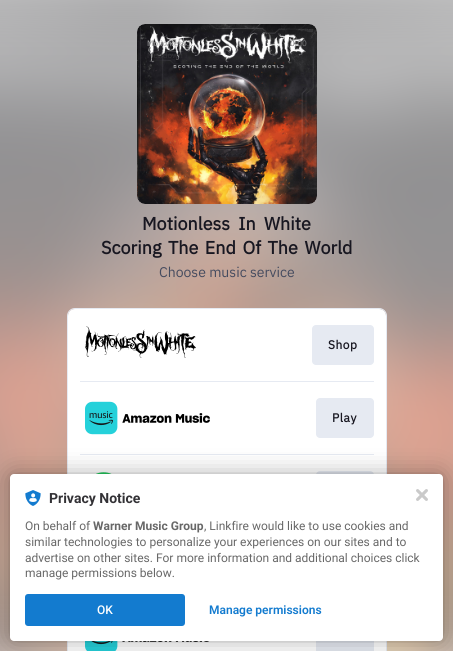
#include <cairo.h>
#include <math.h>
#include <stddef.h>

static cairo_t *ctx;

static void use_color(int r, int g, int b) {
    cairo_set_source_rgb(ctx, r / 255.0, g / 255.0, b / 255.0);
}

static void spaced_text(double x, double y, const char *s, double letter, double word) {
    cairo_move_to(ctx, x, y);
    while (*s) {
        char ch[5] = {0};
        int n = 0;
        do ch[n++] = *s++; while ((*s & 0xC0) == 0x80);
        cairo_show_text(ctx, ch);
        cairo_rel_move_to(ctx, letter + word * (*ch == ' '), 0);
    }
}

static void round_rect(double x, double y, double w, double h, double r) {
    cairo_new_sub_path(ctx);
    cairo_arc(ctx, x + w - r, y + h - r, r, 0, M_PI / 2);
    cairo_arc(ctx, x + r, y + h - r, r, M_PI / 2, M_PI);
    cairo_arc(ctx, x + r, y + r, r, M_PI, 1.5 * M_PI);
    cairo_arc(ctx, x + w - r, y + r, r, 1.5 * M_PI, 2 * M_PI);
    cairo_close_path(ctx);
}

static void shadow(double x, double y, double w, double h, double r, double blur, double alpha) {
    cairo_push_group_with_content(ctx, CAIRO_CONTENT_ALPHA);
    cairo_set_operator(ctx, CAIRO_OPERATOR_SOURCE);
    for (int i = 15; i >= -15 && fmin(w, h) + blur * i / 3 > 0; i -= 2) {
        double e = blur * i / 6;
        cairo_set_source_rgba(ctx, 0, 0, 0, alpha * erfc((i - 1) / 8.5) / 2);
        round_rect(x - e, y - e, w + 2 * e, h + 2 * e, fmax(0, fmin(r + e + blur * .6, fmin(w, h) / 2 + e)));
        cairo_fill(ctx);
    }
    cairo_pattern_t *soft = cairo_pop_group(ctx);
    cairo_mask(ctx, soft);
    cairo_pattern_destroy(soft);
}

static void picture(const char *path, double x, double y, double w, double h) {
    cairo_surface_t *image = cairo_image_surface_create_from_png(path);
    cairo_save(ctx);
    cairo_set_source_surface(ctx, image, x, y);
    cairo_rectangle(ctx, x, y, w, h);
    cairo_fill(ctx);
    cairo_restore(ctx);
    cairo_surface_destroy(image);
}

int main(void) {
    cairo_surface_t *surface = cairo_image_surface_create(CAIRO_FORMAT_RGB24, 453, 651);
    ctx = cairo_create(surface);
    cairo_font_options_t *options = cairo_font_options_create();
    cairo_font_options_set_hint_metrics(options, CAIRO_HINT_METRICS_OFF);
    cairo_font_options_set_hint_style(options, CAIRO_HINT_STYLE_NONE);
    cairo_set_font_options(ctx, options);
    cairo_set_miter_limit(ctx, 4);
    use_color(255, 255, 255);
    cairo_paint(ctx);
    picture("img1.png", 0, 0, 453, 651);
    picture("img2.png", 137, 24, 180, 180);
    cairo_select_font_face(ctx, "IBM Plex Sans", CAIRO_FONT_SLANT_NORMAL, CAIRO_FONT_WEIGHT_NORMAL);
    cairo_set_font_size(ctx, 8);
    use_color(168, 168, 169);
    cairo_move_to(ctx, 147, 46);
    cairo_show_text(ctx, "Motionless I…");
    use_color(51, 50, 54);
    cairo_move_to(ctx, 147, 58);
    cairo_show_text(ctx, "Meltdown");
    use_color(121, 121, 122);
    cairo_move_to(ctx, 290, 46);
    cairo_show_text(ctx, "0:00");
    cairo_select_font_face(ctx, "IBM Plex Sans", CAIRO_FONT_SLANT_NORMAL, CAIRO_FONT_WEIGHT_BOLD);
    cairo_set_font_size(ctx, 18);
    use_color(24, 23, 33);
    spaced_text(142, 230, "Motionless In White", 0, 4);
    spaced_text(101, 254, "Scoring The End Of The World", 0, 2.25);
    cairo_select_font_face(ctx, "IBM Plex Sans", CAIRO_FONT_SLANT_NORMAL, CAIRO_FONT_WEIGHT_NORMAL);
    cairo_set_font_size(ctx, 14);
    use_color(69, 75, 95);
    cairo_move_to(ctx, 159, 277);
    cairo_show_text(ctx, "Choose music service");
    round_rect(67.5, 308.5, 319, 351, 7.5);
    use_color(230, 234, 242);
    cairo_set_line_width(ctx, 1);
    cairo_stroke(ctx);
    use_color(255, 255, 255);
    round_rect(68, 309, 318, 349, 7);
    cairo_fill(ctx);
    picture("img3.png", 85, 326, 111, 32);
    use_color(230, 234, 242);
    round_rect(312, 325, 62, 40, 4);
    cairo_fill(ctx);
    cairo_select_font_face(ctx, "IBM Plex Sans", CAIRO_FONT_SLANT_NORMAL, CAIRO_FONT_WEIGHT_BOLD);
    cairo_set_font_size(ctx, 12);
    use_color(24, 23, 33);
    spaced_text(328, 349, "Shop", 0.5, 0);
    use_color(230, 234, 242);
    cairo_rectangle(ctx, 80, 381, 294, 1);
    cairo_fill(ctx);
    picture("img4.png", 85, 401, 125, 34);
    round_rect(316, 398, 58, 40, 4);
    cairo_fill(ctx);
    use_color(24, 23, 33);
    spaced_text(332, 422, "Play", 0.5, 0);
    use_color(230, 234, 242);
    cairo_rectangle(ctx, 80, 454, 294, 1);
    cairo_fill(ctx);
    picture("img5.png", 96, 472, 16, 2);
    round_rect(316, 471, 58, 40, 4);
    cairo_fill(ctx);
    picture("img6.png", 85, 641, 124, 10);
    cairo_rectangle(ctx, 316, 641, 58, 10);
    cairo_fill(ctx);
    use_color(0, 0, 0);
    shadow(10, 474, 433, 167, 4, 2, 0.12);
    shadow(10, 474, 433, 167, 4, 12, 0.3);
    use_color(255, 255, 255);
    round_rect(10, 474, 433, 167, 4);
    cairo_fill(ctx);
    picture("img7.png", 25, 490, 16, 16);
    cairo_select_font_face(ctx, "Roboto", CAIRO_FONT_SLANT_NORMAL, CAIRO_FONT_WEIGHT_BOLD);
    cairo_set_font_size(ctx, 14);
    use_color(51, 50, 54);
    cairo_move_to(ctx, 49, 503);
    cairo_show_text(ctx, "Privacy Notice");
    cairo_select_font_face(ctx, "Roboto", CAIRO_FONT_SLANT_NORMAL, CAIRO_FONT_WEIGHT_NORMAL);
    cairo_set_font_size(ctx, 12);
    use_color(104, 104, 104);
    cairo_move_to(ctx, 25, 530);
    cairo_show_text(ctx, "On behalf of");
    cairo_select_font_face(ctx, "Roboto", CAIRO_FONT_SLANT_NORMAL, CAIRO_FONT_WEIGHT_BOLD);
    cairo_move_to(ctx, 93, 530);
    cairo_show_text(ctx, "Warner Music Group");
    cairo_select_font_face(ctx, "Roboto", CAIRO_FONT_SLANT_NORMAL, CAIRO_FONT_WEIGHT_NORMAL);
    cairo_move_to(ctx, 204, 530);
    cairo_show_text(ctx, ", Linkfire would like to use cookies and");
    cairo_move_to(ctx, 25, 546);
    cairo_show_text(ctx, "similar technologies to personalize your experiences on our sites and to");
    cairo_move_to(ctx, 25, 562);
    cairo_show_text(ctx, "advertise on other sites. For more information and additional choices click");
    cairo_move_to(ctx, 25, 577);
    cairo_show_text(ctx, "manage permissions below.");
    use_color(19, 123, 207);
    round_rect(25, 594, 160, 32, 3);
    cairo_fill(ctx);
    cairo_select_font_face(ctx, "Roboto Medium", CAIRO_FONT_SLANT_NORMAL, CAIRO_FONT_WEIGHT_NORMAL);
    use_color(255, 255, 255);
    cairo_move_to(ctx, 97, 614);
    cairo_show_text(ctx, "OK");
    cairo_select_font_face(ctx, "Roboto SemiBold", CAIRO_FONT_SLANT_NORMAL, CAIRO_FONT_WEIGHT_NORMAL);
    use_color(19, 123, 207);
    cairo_move_to(ctx, 209, 614);
    cairo_show_text(ctx, "Manage permissions");
    picture("img8.png", 416, 489, 12, 12);
    cairo_surface_write_to_png(surface, "result.png");
    cairo_font_options_destroy(options);
    cairo_destroy(ctx);
    cairo_surface_destroy(surface);
    return 0;
}
